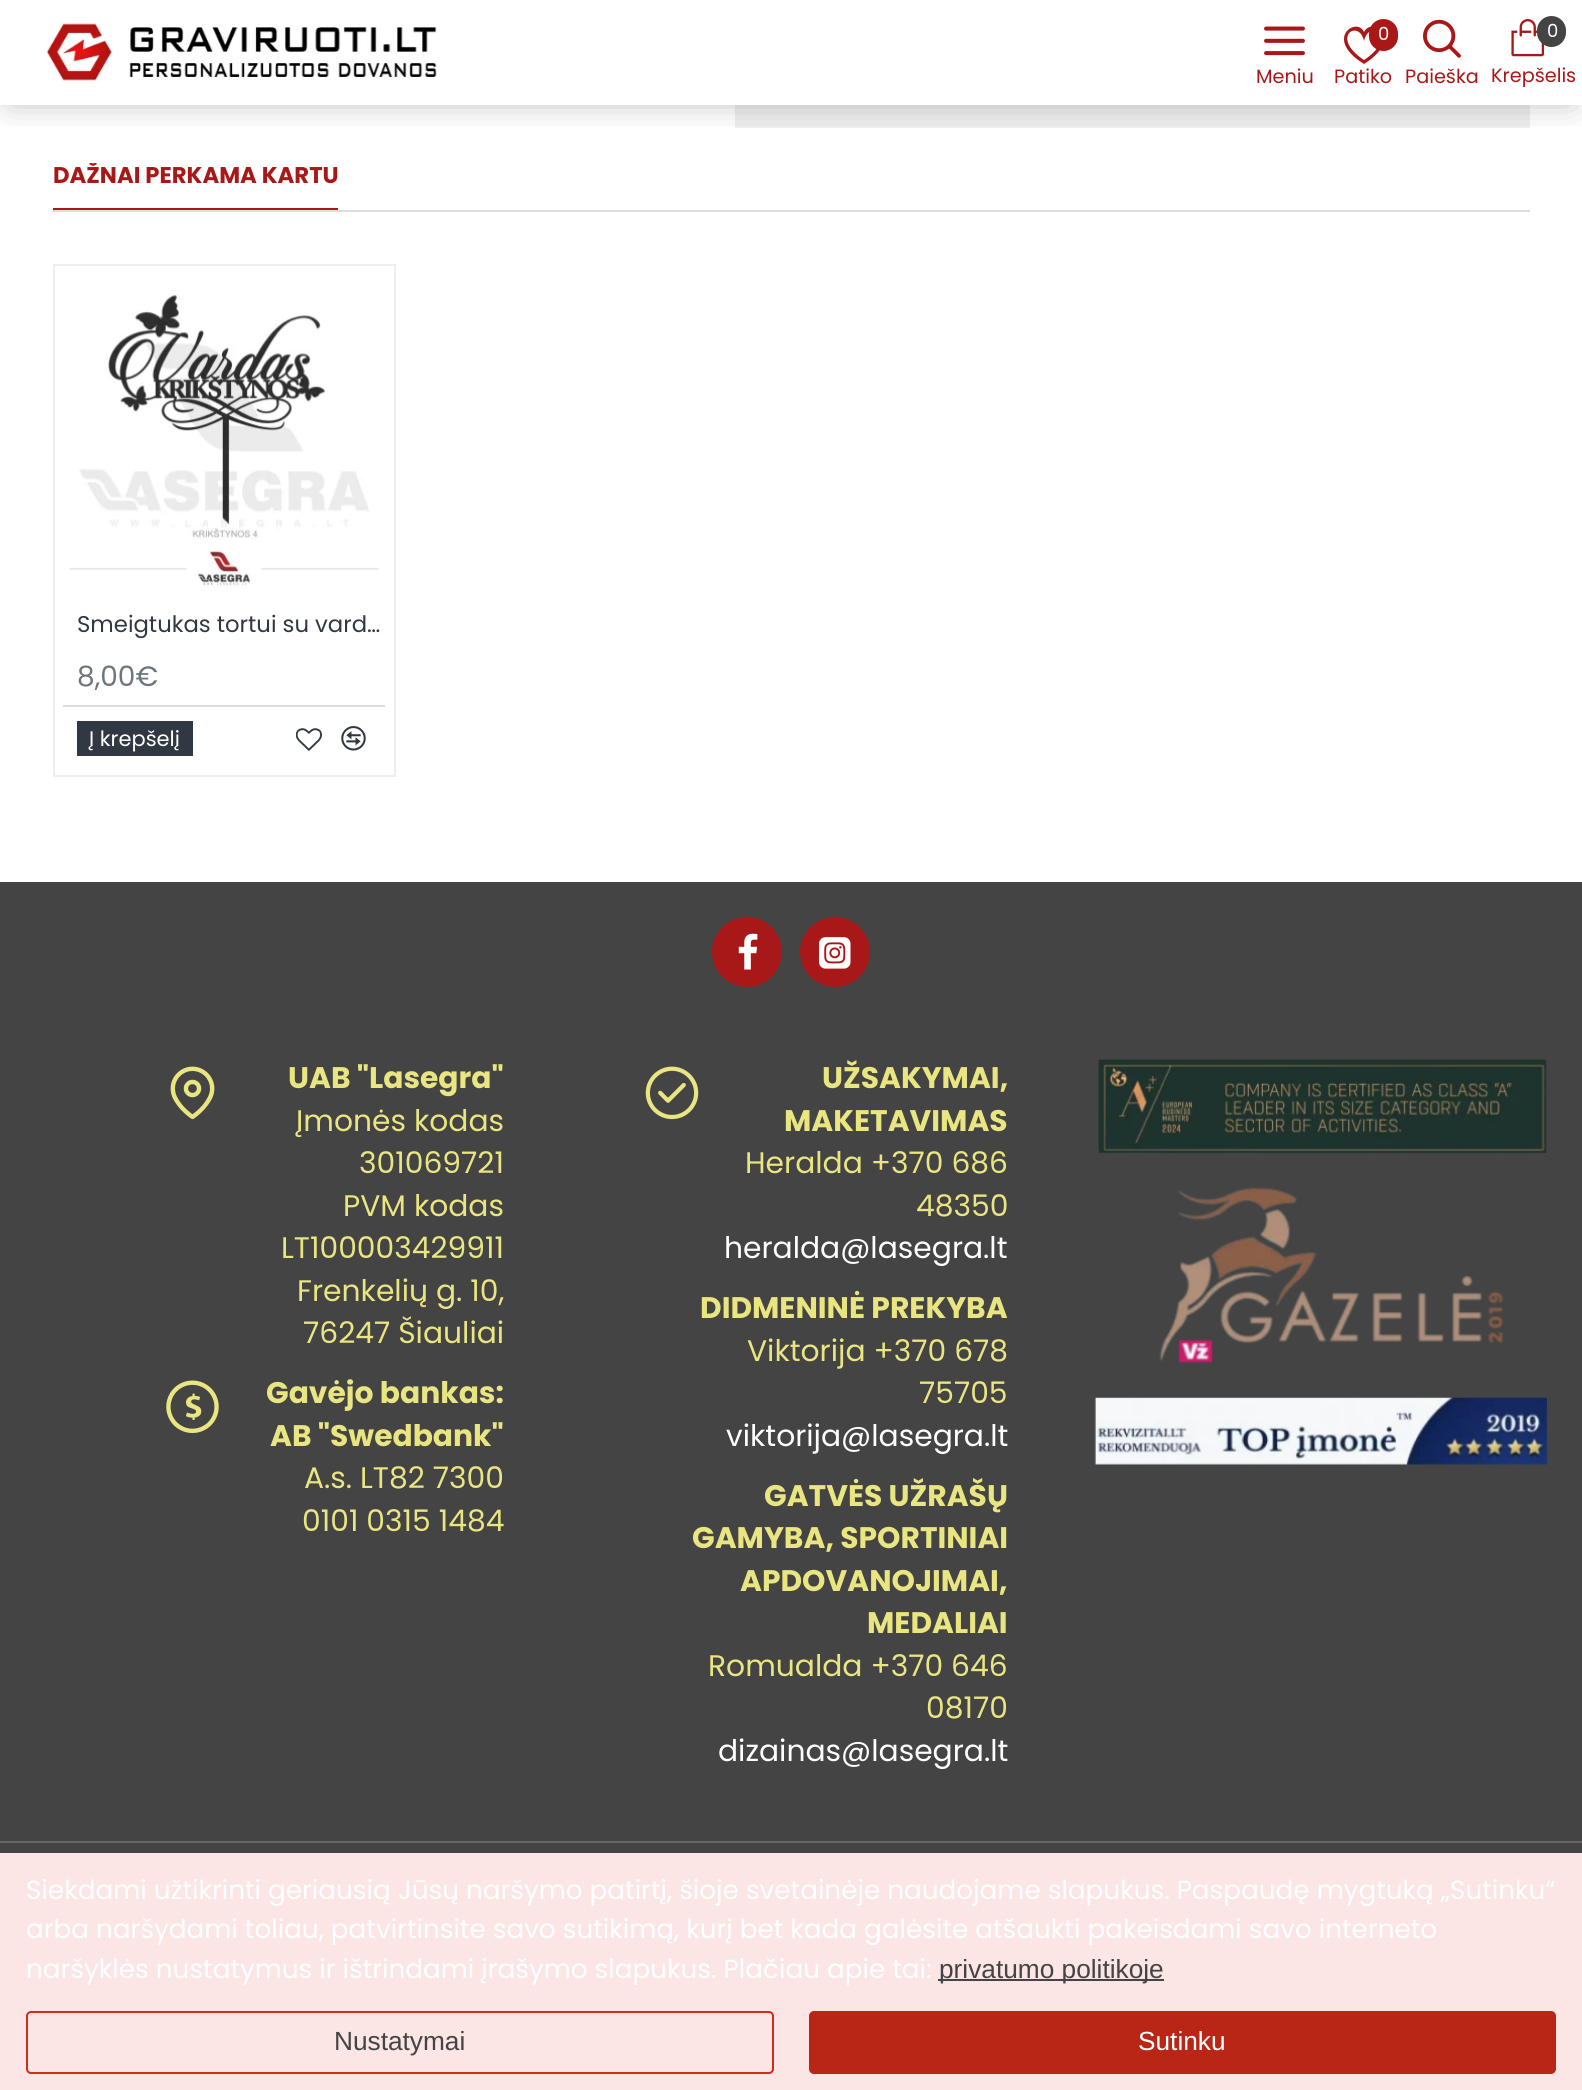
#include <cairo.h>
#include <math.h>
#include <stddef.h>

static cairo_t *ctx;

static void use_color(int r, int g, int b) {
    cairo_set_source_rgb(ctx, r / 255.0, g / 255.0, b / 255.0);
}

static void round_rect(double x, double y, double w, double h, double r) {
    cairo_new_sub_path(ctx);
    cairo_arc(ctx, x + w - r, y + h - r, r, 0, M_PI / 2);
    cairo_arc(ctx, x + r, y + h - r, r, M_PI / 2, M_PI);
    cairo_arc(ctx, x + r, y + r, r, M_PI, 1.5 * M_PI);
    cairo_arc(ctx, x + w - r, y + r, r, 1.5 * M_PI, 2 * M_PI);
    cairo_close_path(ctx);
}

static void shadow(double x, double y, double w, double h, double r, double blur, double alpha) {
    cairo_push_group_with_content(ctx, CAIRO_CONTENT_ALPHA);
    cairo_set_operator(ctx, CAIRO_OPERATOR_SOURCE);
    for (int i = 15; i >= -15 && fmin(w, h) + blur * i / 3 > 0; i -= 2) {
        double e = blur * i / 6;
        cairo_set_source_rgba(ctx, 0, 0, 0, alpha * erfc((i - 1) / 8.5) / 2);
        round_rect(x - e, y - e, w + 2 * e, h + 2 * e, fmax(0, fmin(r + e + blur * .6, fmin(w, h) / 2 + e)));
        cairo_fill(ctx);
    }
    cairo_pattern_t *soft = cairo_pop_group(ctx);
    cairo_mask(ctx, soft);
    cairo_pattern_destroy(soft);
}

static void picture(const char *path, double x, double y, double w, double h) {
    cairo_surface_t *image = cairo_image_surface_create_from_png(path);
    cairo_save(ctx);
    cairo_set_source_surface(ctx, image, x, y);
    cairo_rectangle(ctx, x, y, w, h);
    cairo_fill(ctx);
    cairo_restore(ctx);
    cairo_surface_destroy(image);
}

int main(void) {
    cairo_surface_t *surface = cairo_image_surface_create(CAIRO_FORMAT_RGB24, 1582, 2090);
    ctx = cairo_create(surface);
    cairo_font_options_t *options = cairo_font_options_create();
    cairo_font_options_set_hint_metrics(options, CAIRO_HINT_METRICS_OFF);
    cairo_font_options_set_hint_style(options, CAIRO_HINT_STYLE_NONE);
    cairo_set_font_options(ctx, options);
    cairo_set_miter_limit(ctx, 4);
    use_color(255, 255, 255);
    cairo_paint(ctx);
    use_color(238, 238, 238);
    cairo_rectangle(ctx, 735, 105, 795, 23);
    cairo_fill(ctx);
    cairo_save(ctx);
    cairo_rectangle(ctx, 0, 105, 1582, 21);
    cairo_clip(ctx);
    use_color(0, 0, 0);
    shadow(11, 16, 1561, 84, 0, 17.5, 0.3);
    cairo_restore(ctx);
    picture("img1.png", 46, 22, 391, 60);
    picture("img2.png", 1264, 26, 41, 30);
    cairo_select_font_face(ctx, "Poppins", CAIRO_FONT_SLANT_NORMAL, CAIRO_FONT_WEIGHT_NORMAL);
    cairo_set_font_size(ctx, 19.25);
    use_color(169, 24, 24);
    cairo_move_to(ctx, 1256, 83);
    cairo_show_text(ctx, "Meniu");
    cairo_new_path(ctx);
    cairo_move_to(ctx, 1364, 41);
    cairo_curve_to(ctx, 1369, 18, 1399, 37, 1364, 60);
    cairo_curve_to(ctx, 1329, 37, 1359, 18, 1364, 41);
    cairo_close_path(ctx);
    cairo_move_to(ctx, 1344, 39);
    cairo_curve_to(ctx, 1344, 50, 1356, 59, 1364, 64);
    cairo_curve_to(ctx, 1405, 38, 1372, 16, 1364, 32);
    cairo_curve_to(ctx, 1360, 22, 1344, 27, 1344, 39);
    cairo_close_path(ctx);
    cairo_fill(ctx);
    round_rect(1369, 19, 29, 32, 14.5);
    cairo_fill(ctx);
    cairo_set_font_size(ctx, 18);
    use_color(255, 255, 255);
    cairo_move_to(ctx, 1378, 40);
    cairo_show_text(ctx, "0");
    cairo_set_font_size(ctx, 19.25);
    use_color(169, 24, 24);
    cairo_move_to(ctx, 1334, 83);
    cairo_show_text(ctx, "Patiko");
    picture("img3.png", 1423, 19, 38, 39);
    cairo_move_to(ctx, 1405, 83);
    cairo_show_text(ctx, "Paieška");
    picture("img4.png", 1511, 19, 34, 38);
    use_color(68, 68, 68);
    round_rect(1537, 16, 29, 31, 14.5);
    cairo_fill(ctx);
    cairo_set_font_size(ctx, 18);
    use_color(255, 255, 255);
    cairo_move_to(ctx, 1547, 37);
    cairo_show_text(ctx, "0");
    cairo_set_font_size(ctx, 19.25);
    use_color(169, 24, 24);
    cairo_move_to(ctx, 1491, 82);
    cairo_show_text(ctx, "Krepšelis");
    use_color(221, 221, 221);
    cairo_rectangle(ctx, 53, 210, 1477, 2);
    cairo_fill(ctx);
    use_color(169, 24, 24);
    cairo_rectangle(ctx, 53, 208, 285, 2);
    cairo_fill(ctx);
    cairo_save(ctx);
    cairo_rectangle(ctx, 53, 163, 1477, 47);
    cairo_clip(ctx);
    cairo_select_font_face(ctx, "Poppins", CAIRO_FONT_SLANT_NORMAL, CAIRO_FONT_WEIGHT_BOLD);
    cairo_set_font_size(ctx, 22.75);
    cairo_move_to(ctx, 53, 183);
    cairo_show_text(ctx, "DAŽNAI PERKAMA KARTU");
    cairo_restore(ctx);
    cairo_rectangle(ctx, 54, 265, 341, 511);
    use_color(238, 238, 238);
    cairo_stroke(ctx);
    picture("img5.png", 69, 295, 310, 293);
    cairo_set_font_size(ctx, 22.75);
    use_color(48, 56, 65);
    cairo_move_to(ctx, 77, 632);
    cairo_show_text(ctx, "Smeigtukas tortui su vard…");
    cairo_set_font_size(ctx, 28);
    use_color(109, 118, 125);
    cairo_move_to(ctx, 77, 686);
    cairo_show_text(ctx, "8,00€");
    use_color(221, 221, 221);
    cairo_rectangle(ctx, 63, 705, 322, 2);
    cairo_fill(ctx);
    use_color(48, 56, 65);
    cairo_rectangle(ctx, 77, 721, 116, 35);
    cairo_fill(ctx);
    cairo_set_font_size(ctx, 21);
    use_color(255, 255, 255);
    cairo_move_to(ctx, 89, 746);
    cairo_show_text(ctx, "Į krepšelį");
    picture("img6.png", 296, 728, 26, 23);
    picture("img7.png", 341, 726, 25, 25);
    use_color(68, 68, 68);
    cairo_rectangle(ctx, 0, 882, 1582, 971);
    cairo_fill(ctx);
    use_color(169, 24, 24);
    cairo_arc(ctx, 747, 952, 35, 0, 2 * M_PI);
    cairo_fill(ctx);
    picture("img8.png", 738, 933, 20, 37);
    cairo_arc(ctx, 835, 952, 35, 0, 2 * M_PI);
    cairo_fill(ctx);
    picture("img9.png", 819, 937, 32, 32);
    picture("img10.png", 170, 1066, 45, 54);
    cairo_select_font_face(ctx, "Poppins", CAIRO_FONT_SLANT_NORMAL, CAIRO_FONT_WEIGHT_BOLD);
    cairo_set_font_size(ctx, 29.75);
    use_color(233, 229, 129);
    cairo_move_to(ctx, 288, 1088);
    cairo_show_text(ctx, "UAB \"Lasegra\"");
    cairo_select_font_face(ctx, "Poppins", CAIRO_FONT_SLANT_NORMAL, CAIRO_FONT_WEIGHT_NORMAL);
    cairo_move_to(ctx, 296, 1131);
    cairo_show_text(ctx, "Įmonės kodas");
    cairo_move_to(ctx, 359, 1173);
    cairo_show_text(ctx, "301069721");
    cairo_move_to(ctx, 343, 1216);
    cairo_show_text(ctx, "PVM kodas");
    cairo_move_to(ctx, 281, 1258);
    cairo_show_text(ctx, "LT100003429911");
    cairo_move_to(ctx, 297, 1301);
    cairo_show_text(ctx, "Frenkelių g. 10,");
    cairo_move_to(ctx, 303, 1343);
    cairo_show_text(ctx, "76247 Šiauliai");
    picture("img11.png", 166, 1380, 53, 53);
    cairo_select_font_face(ctx, "Poppins", CAIRO_FONT_SLANT_NORMAL, CAIRO_FONT_WEIGHT_BOLD);
    cairo_move_to(ctx, 266, 1403);
    cairo_show_text(ctx, "Gavėjo bankas:");
    cairo_move_to(ctx, 270, 1446);
    cairo_show_text(ctx, "AB \"Swedbank\"");
    cairo_select_font_face(ctx, "Poppins", CAIRO_FONT_SLANT_NORMAL, CAIRO_FONT_WEIGHT_NORMAL);
    cairo_move_to(ctx, 304, 1488);
    cairo_show_text(ctx, "A.s. LT82 7300");
    cairo_move_to(ctx, 302, 1531);
    cairo_show_text(ctx, "0101 0315 1484");
    picture("img12.png", 645, 1066, 54, 54);
    cairo_select_font_face(ctx, "Poppins", CAIRO_FONT_SLANT_NORMAL, CAIRO_FONT_WEIGHT_BOLD);
    cairo_move_to(ctx, 822, 1088);
    cairo_show_text(ctx, "UŽSAKYMAI,");
    cairo_move_to(ctx, 784, 1131);
    cairo_show_text(ctx, "MAKETAVIMAS");
    cairo_select_font_face(ctx, "Poppins", CAIRO_FONT_SLANT_NORMAL, CAIRO_FONT_WEIGHT_NORMAL);
    cairo_move_to(ctx, 745, 1173);
    cairo_show_text(ctx, "Heralda +370 686");
    cairo_move_to(ctx, 916, 1216);
    cairo_show_text(ctx, "48350");
    use_color(255, 255, 255);
    cairo_move_to(ctx, 724, 1258);
    cairo_show_text(ctx, "heralda@lasegra.lt");
    cairo_select_font_face(ctx, "Poppins", CAIRO_FONT_SLANT_NORMAL, CAIRO_FONT_WEIGHT_BOLD);
    use_color(233, 229, 129);
    cairo_move_to(ctx, 700, 1318);
    cairo_show_text(ctx, "DIDMENINĖ PREKYBA");
    cairo_select_font_face(ctx, "Poppins", CAIRO_FONT_SLANT_NORMAL, CAIRO_FONT_WEIGHT_NORMAL);
    cairo_move_to(ctx, 747, 1361);
    cairo_show_text(ctx, "Viktorija +370 678");
    cairo_move_to(ctx, 919, 1403);
    cairo_show_text(ctx, "75705");
    use_color(255, 255, 255);
    cairo_move_to(ctx, 726, 1446);
    cairo_show_text(ctx, "viktorija@lasegra.lt");
    cairo_select_font_face(ctx, "Poppins", CAIRO_FONT_SLANT_NORMAL, CAIRO_FONT_WEIGHT_BOLD);
    use_color(233, 229, 129);
    cairo_move_to(ctx, 764, 1506);
    cairo_show_text(ctx, "GATVĖS UŽRAŠŲ");
    cairo_move_to(ctx, 692, 1548);
    cairo_show_text(ctx, "GAMYBA, SPORTINIAI");
    cairo_move_to(ctx, 740, 1591);
    cairo_show_text(ctx, "APDOVANOJIMAI,");
    cairo_move_to(ctx, 867, 1633);
    cairo_show_text(ctx, "MEDALIAI");
    cairo_select_font_face(ctx, "Poppins", CAIRO_FONT_SLANT_NORMAL, CAIRO_FONT_WEIGHT_NORMAL);
    cairo_move_to(ctx, 708, 1676);
    cairo_show_text(ctx, "Romualda +370 646");
    cairo_move_to(ctx, 926, 1718);
    cairo_show_text(ctx, "08170");
    use_color(255, 255, 255);
    cairo_move_to(ctx, 718, 1761);
    cairo_show_text(ctx, "dizainas@lasegra.lt");
    picture("img13.png", 1098, 1059, 449, 94);
    picture("img14.png", 1159, 1187, 345, 177);
    picture("img15.png", 1094, 1397, 453, 68);
    use_color(102, 102, 102);
    cairo_rectangle(ctx, 0, 1841, 1582, 2);
    cairo_fill(ctx);
    use_color(251, 229, 229);
    cairo_rectangle(ctx, 0, 1853, 1582, 237);
    cairo_fill(ctx);
    cairo_set_font_size(ctx, 26.25);
    use_color(255, 255, 255);
    cairo_move_to(ctx, 26, 1899);
    cairo_show_text(ctx, "Siekdami užtikrinti geriausią Jūsų naršymo patirtį, šioje svetainėje naudojame slapukus. Paspaudę mygtuką „Sutinku“");
    cairo_move_to(ctx, 26, 1938);
    cairo_show_text(ctx, "arba naršydami toliau, patvirtinsite savo sutikimą, kurį bet kada galėsite atšaukti pakeisdami savo interneto");
    cairo_move_to(ctx, 26, 1978);
    cairo_show_text(ctx, "naršyklės nustatymus ir ištrindami įrašymo slapukus. Plačiau apie tai:");
    use_color(68, 68, 68);
    cairo_rectangle(ctx, 938, 1979, 226, 2);
    cairo_fill(ctx);
    cairo_select_font_face(ctx, "Liberation Sans", CAIRO_FONT_SLANT_NORMAL, CAIRO_FONT_WEIGHT_NORMAL);
    cairo_move_to(ctx, 939, 1978);
    cairo_show_text(ctx, "privatumo politikoje");
    round_rect(27, 2012, 746, 61, 4);
    use_color(209, 45, 28);
    cairo_stroke(ctx);
    use_color(68, 68, 68);
    cairo_move_to(ctx, 334, 2050);
    cairo_show_text(ctx, "Nustatymai");
    use_color(185, 38, 22);
    round_rect(810, 2012, 745, 61, 4);
    cairo_fill_preserve(ctx);
    cairo_stroke(ctx);
    use_color(255, 255, 255);
    cairo_move_to(ctx, 1138, 2050);
    cairo_show_text(ctx, "Sutinku");
    cairo_surface_write_to_png(surface, "result.png");
    cairo_font_options_destroy(options);
    cairo_destroy(ctx);
    cairo_surface_destroy(surface);
    return 0;
}
